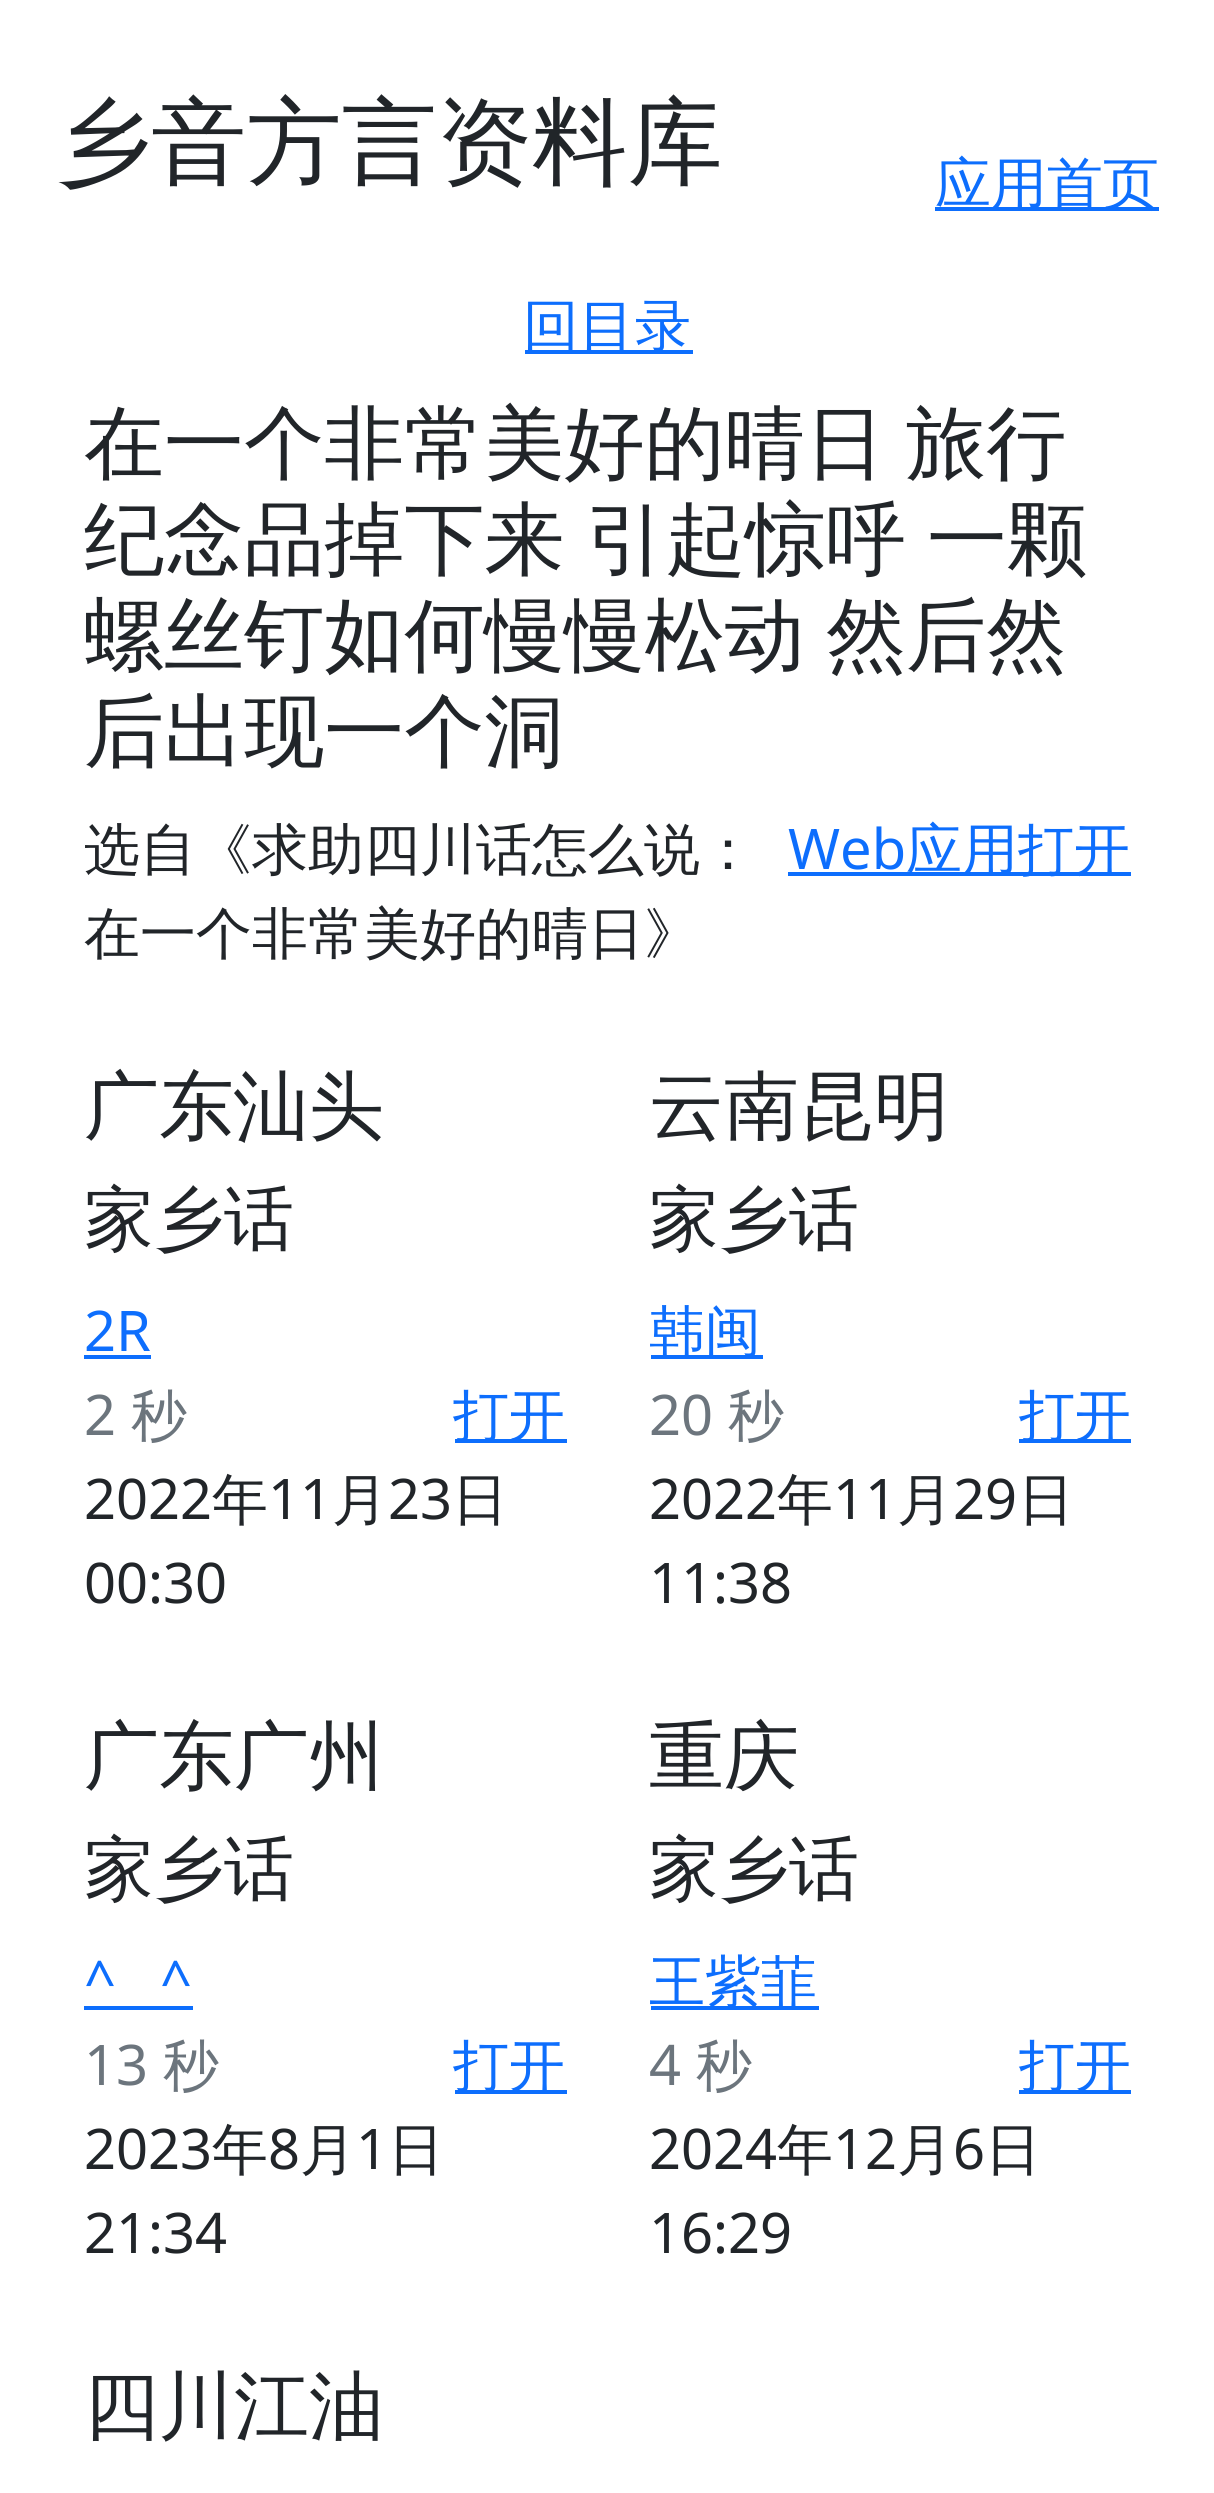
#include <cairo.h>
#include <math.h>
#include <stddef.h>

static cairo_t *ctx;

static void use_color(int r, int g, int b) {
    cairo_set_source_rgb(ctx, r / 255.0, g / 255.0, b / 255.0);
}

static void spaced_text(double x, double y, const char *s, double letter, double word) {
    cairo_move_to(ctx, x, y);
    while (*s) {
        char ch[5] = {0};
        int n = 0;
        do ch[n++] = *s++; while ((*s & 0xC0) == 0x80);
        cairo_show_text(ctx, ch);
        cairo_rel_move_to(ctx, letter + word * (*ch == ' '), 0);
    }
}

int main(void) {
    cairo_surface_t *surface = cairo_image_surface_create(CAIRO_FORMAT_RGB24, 1214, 2493);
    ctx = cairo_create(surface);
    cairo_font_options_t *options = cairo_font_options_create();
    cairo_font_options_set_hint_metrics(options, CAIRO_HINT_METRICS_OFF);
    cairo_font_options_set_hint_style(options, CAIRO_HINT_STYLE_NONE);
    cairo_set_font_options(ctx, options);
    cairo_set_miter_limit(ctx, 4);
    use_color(255, 255, 255);
    cairo_paint(ctx);
    cairo_select_font_face(ctx, "WenQuanYi Zen Hei Medium", CAIRO_FONT_SLANT_NORMAL, CAIRO_FONT_WEIGHT_NORMAL);
    cairo_set_font_size(ctx, 95.25);
    use_color(33, 37, 41);
    cairo_move_to(ctx, 56, 175);
    cairo_show_text(ctx, "乡音方言资料库");
    use_color(13, 110, 253);
    cairo_rectangle(ctx, 935, 207, 224, 4);
    cairo_fill(ctx);
    cairo_set_font_size(ctx, 56);
    cairo_move_to(ctx, 935, 203);
    cairo_show_text(ctx, "应用首页");
    cairo_rectangle(ctx, 525, 350, 168, 4);
    cairo_fill(ctx);
    cairo_move_to(ctx, 523, 345);
    cairo_show_text(ctx, "回目录");
    cairo_set_font_size(ctx, 80.1);
    use_color(33, 37, 41);
    spaced_text(84, 471, "在一个非常美好的晴日 旅行", 0, -3);
    spaced_text(84, 567, "纪念品掉下来 引起惊呼 一颗", 0, -3);
    spaced_text(84, 663, "螺丝钉如何慢慢松动 然后然", 0, -3);
    cairo_move_to(ctx, 84, 759);
    cairo_show_text(ctx, "后出现一个洞");
    cairo_set_font_size(ctx, 56);
    cairo_move_to(ctx, 84, 869);
    cairo_show_text(ctx, "选自《求助四川话怎么说：");
    cairo_move_to(ctx, 84, 953);
    cairo_show_text(ctx, "在一个非常美好的晴日》");
    cairo_select_font_face(ctx, "Noto Sans", CAIRO_FONT_SLANT_NORMAL, CAIRO_FONT_WEIGHT_NORMAL);
    use_color(13, 110, 253);
    cairo_move_to(ctx, 788, 869);
    cairo_show_text(ctx, "Web");
    cairo_rectangle(ctx, 788, 872, 343, 4);
    cairo_fill(ctx);
    cairo_select_font_face(ctx, "WenQuanYi Zen Hei Medium", CAIRO_FONT_SLANT_NORMAL, CAIRO_FONT_WEIGHT_NORMAL);
    cairo_move_to(ctx, 906, 869);
    cairo_show_text(ctx, "应用打开");
    cairo_set_font_size(ctx, 75);
    use_color(33, 37, 41);
    cairo_move_to(ctx, 84, 1132);
    cairo_show_text(ctx, "广东汕头");
    cairo_set_font_size(ctx, 70);
    cairo_move_to(ctx, 84, 1243);
    cairo_show_text(ctx, "家乡话");
    cairo_select_font_face(ctx, "Noto Sans", CAIRO_FONT_SLANT_NORMAL, CAIRO_FONT_WEIGHT_NORMAL);
    cairo_set_font_size(ctx, 56);
    use_color(13, 110, 253);
    cairo_move_to(ctx, 84, 1351);
    cairo_show_text(ctx, "2R");
    cairo_rectangle(ctx, 84, 1355, 67, 4);
    cairo_fill(ctx);
    use_color(108, 117, 125);
    cairo_move_to(ctx, 84, 1435);
    cairo_show_text(ctx, "2");
    cairo_select_font_face(ctx, "WenQuanYi Zen Hei Medium", CAIRO_FONT_SLANT_NORMAL, CAIRO_FONT_WEIGHT_NORMAL);
    cairo_move_to(ctx, 131, 1435);
    cairo_show_text(ctx, "秒");
    use_color(13, 110, 253);
    cairo_rectangle(ctx, 455, 1439, 112, 4);
    cairo_fill(ctx);
    cairo_move_to(ctx, 453, 1435);
    cairo_show_text(ctx, "打开");
    cairo_select_font_face(ctx, "Noto Sans", CAIRO_FONT_SLANT_NORMAL, CAIRO_FONT_WEIGHT_NORMAL);
    use_color(33, 37, 41);
    cairo_move_to(ctx, 84, 1519);
    cairo_show_text(ctx, "2022");
    cairo_select_font_face(ctx, "WenQuanYi Zen Hei Medium", CAIRO_FONT_SLANT_NORMAL, CAIRO_FONT_WEIGHT_NORMAL);
    cairo_move_to(ctx, 212, 1519);
    cairo_show_text(ctx, "年");
    cairo_select_font_face(ctx, "Noto Sans", CAIRO_FONT_SLANT_NORMAL, CAIRO_FONT_WEIGHT_NORMAL);
    cairo_move_to(ctx, 268, 1519);
    cairo_show_text(ctx, "11");
    cairo_select_font_face(ctx, "WenQuanYi Zen Hei Medium", CAIRO_FONT_SLANT_NORMAL, CAIRO_FONT_WEIGHT_NORMAL);
    cairo_move_to(ctx, 332, 1519);
    cairo_show_text(ctx, "月");
    cairo_select_font_face(ctx, "Noto Sans", CAIRO_FONT_SLANT_NORMAL, CAIRO_FONT_WEIGHT_NORMAL);
    cairo_move_to(ctx, 388, 1519);
    cairo_show_text(ctx, "23");
    cairo_select_font_face(ctx, "WenQuanYi Zen Hei Medium", CAIRO_FONT_SLANT_NORMAL, CAIRO_FONT_WEIGHT_NORMAL);
    cairo_move_to(ctx, 452, 1519);
    cairo_show_text(ctx, "日");
    cairo_select_font_face(ctx, "Noto Sans", CAIRO_FONT_SLANT_NORMAL, CAIRO_FONT_WEIGHT_NORMAL);
    cairo_move_to(ctx, 84, 1603);
    cairo_show_text(ctx, "00:30");
    cairo_select_font_face(ctx, "WenQuanYi Zen Hei Medium", CAIRO_FONT_SLANT_NORMAL, CAIRO_FONT_WEIGHT_NORMAL);
    cairo_set_font_size(ctx, 75);
    cairo_move_to(ctx, 649, 1132);
    cairo_show_text(ctx, "云南昆明");
    cairo_set_font_size(ctx, 70);
    cairo_move_to(ctx, 649, 1243);
    cairo_show_text(ctx, "家乡话");
    use_color(13, 110, 253);
    cairo_rectangle(ctx, 651, 1355, 112, 4);
    cairo_fill(ctx);
    cairo_set_font_size(ctx, 56);
    cairo_move_to(ctx, 649, 1351);
    cairo_show_text(ctx, "韩闽");
    cairo_select_font_face(ctx, "Noto Sans", CAIRO_FONT_SLANT_NORMAL, CAIRO_FONT_WEIGHT_NORMAL);
    use_color(108, 117, 125);
    cairo_move_to(ctx, 649, 1435);
    cairo_show_text(ctx, "20");
    cairo_select_font_face(ctx, "WenQuanYi Zen Hei Medium", CAIRO_FONT_SLANT_NORMAL, CAIRO_FONT_WEIGHT_NORMAL);
    cairo_move_to(ctx, 728, 1435);
    cairo_show_text(ctx, "秒");
    use_color(13, 110, 253);
    cairo_rectangle(ctx, 1019, 1439, 112, 4);
    cairo_fill(ctx);
    cairo_move_to(ctx, 1019, 1435);
    cairo_show_text(ctx, "打开");
    cairo_select_font_face(ctx, "Noto Sans", CAIRO_FONT_SLANT_NORMAL, CAIRO_FONT_WEIGHT_NORMAL);
    use_color(33, 37, 41);
    cairo_move_to(ctx, 649, 1519);
    cairo_show_text(ctx, "2022");
    cairo_select_font_face(ctx, "WenQuanYi Zen Hei Medium", CAIRO_FONT_SLANT_NORMAL, CAIRO_FONT_WEIGHT_NORMAL);
    cairo_move_to(ctx, 777, 1519);
    cairo_show_text(ctx, "年");
    cairo_select_font_face(ctx, "Noto Sans", CAIRO_FONT_SLANT_NORMAL, CAIRO_FONT_WEIGHT_NORMAL);
    cairo_move_to(ctx, 833, 1519);
    cairo_show_text(ctx, "11");
    cairo_select_font_face(ctx, "WenQuanYi Zen Hei Medium", CAIRO_FONT_SLANT_NORMAL, CAIRO_FONT_WEIGHT_NORMAL);
    cairo_move_to(ctx, 897, 1519);
    cairo_show_text(ctx, "月");
    cairo_select_font_face(ctx, "Noto Sans", CAIRO_FONT_SLANT_NORMAL, CAIRO_FONT_WEIGHT_NORMAL);
    cairo_move_to(ctx, 953, 1519);
    cairo_show_text(ctx, "29");
    cairo_select_font_face(ctx, "WenQuanYi Zen Hei Medium", CAIRO_FONT_SLANT_NORMAL, CAIRO_FONT_WEIGHT_NORMAL);
    cairo_move_to(ctx, 1018, 1519);
    cairo_show_text(ctx, "日");
    cairo_select_font_face(ctx, "Noto Sans", CAIRO_FONT_SLANT_NORMAL, CAIRO_FONT_WEIGHT_NORMAL);
    cairo_move_to(ctx, 649, 1603);
    cairo_show_text(ctx, "11:38");
    cairo_select_font_face(ctx, "WenQuanYi Zen Hei Medium", CAIRO_FONT_SLANT_NORMAL, CAIRO_FONT_WEIGHT_NORMAL);
    cairo_set_font_size(ctx, 75);
    cairo_move_to(ctx, 84, 1782);
    cairo_show_text(ctx, "广东广州");
    cairo_set_font_size(ctx, 70);
    cairo_move_to(ctx, 84, 1893);
    cairo_show_text(ctx, "家乡话");
    cairo_select_font_face(ctx, "Noto Sans", CAIRO_FONT_SLANT_NORMAL, CAIRO_FONT_WEIGHT_NORMAL);
    cairo_set_font_size(ctx, 56);
    use_color(13, 110, 253);
    cairo_move_to(ctx, 84, 2001);
    cairo_show_text(ctx, "^");
    cairo_rectangle(ctx, 84, 2006, 109, 4);
    cairo_fill(ctx);
    cairo_move_to(ctx, 160, 2001);
    cairo_show_text(ctx, "^");
    use_color(108, 117, 125);
    cairo_move_to(ctx, 84, 2085);
    cairo_show_text(ctx, "13");
    cairo_select_font_face(ctx, "WenQuanYi Zen Hei Medium", CAIRO_FONT_SLANT_NORMAL, CAIRO_FONT_WEIGHT_NORMAL);
    cairo_move_to(ctx, 163, 2085);
    cairo_show_text(ctx, "秒");
    use_color(13, 110, 253);
    cairo_rectangle(ctx, 455, 2090, 112, 4);
    cairo_fill(ctx);
    cairo_move_to(ctx, 453, 2085);
    cairo_show_text(ctx, "打开");
    cairo_select_font_face(ctx, "Noto Sans", CAIRO_FONT_SLANT_NORMAL, CAIRO_FONT_WEIGHT_NORMAL);
    use_color(33, 37, 41);
    cairo_move_to(ctx, 84, 2169);
    cairo_show_text(ctx, "2023");
    cairo_select_font_face(ctx, "WenQuanYi Zen Hei Medium", CAIRO_FONT_SLANT_NORMAL, CAIRO_FONT_WEIGHT_NORMAL);
    cairo_move_to(ctx, 212, 2169);
    cairo_show_text(ctx, "年");
    cairo_select_font_face(ctx, "Noto Sans", CAIRO_FONT_SLANT_NORMAL, CAIRO_FONT_WEIGHT_NORMAL);
    cairo_move_to(ctx, 268, 2169);
    cairo_show_text(ctx, "8");
    cairo_select_font_face(ctx, "WenQuanYi Zen Hei Medium", CAIRO_FONT_SLANT_NORMAL, CAIRO_FONT_WEIGHT_NORMAL);
    cairo_move_to(ctx, 300, 2169);
    cairo_show_text(ctx, "月");
    cairo_select_font_face(ctx, "Noto Sans", CAIRO_FONT_SLANT_NORMAL, CAIRO_FONT_WEIGHT_NORMAL);
    cairo_move_to(ctx, 356, 2169);
    cairo_show_text(ctx, "1");
    cairo_select_font_face(ctx, "WenQuanYi Zen Hei Medium", CAIRO_FONT_SLANT_NORMAL, CAIRO_FONT_WEIGHT_NORMAL);
    cairo_move_to(ctx, 388, 2169);
    cairo_show_text(ctx, "日");
    cairo_select_font_face(ctx, "Noto Sans", CAIRO_FONT_SLANT_NORMAL, CAIRO_FONT_WEIGHT_NORMAL);
    cairo_move_to(ctx, 84, 2253);
    cairo_show_text(ctx, "21:34");
    cairo_select_font_face(ctx, "WenQuanYi Zen Hei Medium", CAIRO_FONT_SLANT_NORMAL, CAIRO_FONT_WEIGHT_NORMAL);
    cairo_set_font_size(ctx, 75);
    cairo_move_to(ctx, 649, 1782);
    cairo_show_text(ctx, "重庆");
    cairo_set_font_size(ctx, 70);
    cairo_move_to(ctx, 649, 1893);
    cairo_show_text(ctx, "家乡话");
    use_color(13, 110, 253);
    cairo_rectangle(ctx, 651, 2006, 168, 4);
    cairo_fill(ctx);
    cairo_set_font_size(ctx, 56);
    cairo_move_to(ctx, 649, 2001);
    cairo_show_text(ctx, "王紫菲");
    cairo_select_font_face(ctx, "Noto Sans", CAIRO_FONT_SLANT_NORMAL, CAIRO_FONT_WEIGHT_NORMAL);
    use_color(108, 117, 125);
    cairo_move_to(ctx, 649, 2085);
    cairo_show_text(ctx, "4");
    cairo_select_font_face(ctx, "WenQuanYi Zen Hei Medium", CAIRO_FONT_SLANT_NORMAL, CAIRO_FONT_WEIGHT_NORMAL);
    cairo_move_to(ctx, 696, 2085);
    cairo_show_text(ctx, "秒");
    use_color(13, 110, 253);
    cairo_rectangle(ctx, 1019, 2090, 112, 4);
    cairo_fill(ctx);
    cairo_move_to(ctx, 1019, 2085);
    cairo_show_text(ctx, "打开");
    cairo_select_font_face(ctx, "Noto Sans", CAIRO_FONT_SLANT_NORMAL, CAIRO_FONT_WEIGHT_NORMAL);
    use_color(33, 37, 41);
    cairo_move_to(ctx, 649, 2169);
    cairo_show_text(ctx, "2024");
    cairo_select_font_face(ctx, "WenQuanYi Zen Hei Medium", CAIRO_FONT_SLANT_NORMAL, CAIRO_FONT_WEIGHT_NORMAL);
    cairo_move_to(ctx, 777, 2169);
    cairo_show_text(ctx, "年");
    cairo_select_font_face(ctx, "Noto Sans", CAIRO_FONT_SLANT_NORMAL, CAIRO_FONT_WEIGHT_NORMAL);
    cairo_move_to(ctx, 833, 2169);
    cairo_show_text(ctx, "12");
    cairo_select_font_face(ctx, "WenQuanYi Zen Hei Medium", CAIRO_FONT_SLANT_NORMAL, CAIRO_FONT_WEIGHT_NORMAL);
    cairo_move_to(ctx, 897, 2169);
    cairo_show_text(ctx, "月");
    cairo_select_font_face(ctx, "Noto Sans", CAIRO_FONT_SLANT_NORMAL, CAIRO_FONT_WEIGHT_NORMAL);
    cairo_move_to(ctx, 953, 2169);
    cairo_show_text(ctx, "6");
    cairo_select_font_face(ctx, "WenQuanYi Zen Hei Medium", CAIRO_FONT_SLANT_NORMAL, CAIRO_FONT_WEIGHT_NORMAL);
    cairo_move_to(ctx, 985, 2169);
    cairo_show_text(ctx, "日");
    cairo_select_font_face(ctx, "Noto Sans", CAIRO_FONT_SLANT_NORMAL, CAIRO_FONT_WEIGHT_NORMAL);
    cairo_move_to(ctx, 649, 2253);
    cairo_show_text(ctx, "16:29");
    cairo_select_font_face(ctx, "WenQuanYi Zen Hei Medium", CAIRO_FONT_SLANT_NORMAL, CAIRO_FONT_WEIGHT_NORMAL);
    cairo_set_font_size(ctx, 75);
    cairo_move_to(ctx, 84, 2432);
    cairo_show_text(ctx, "四川江油");
    cairo_surface_write_to_png(surface, "result.png");
    cairo_font_options_destroy(options);
    cairo_destroy(ctx);
    cairo_surface_destroy(surface);
    return 0;
}
